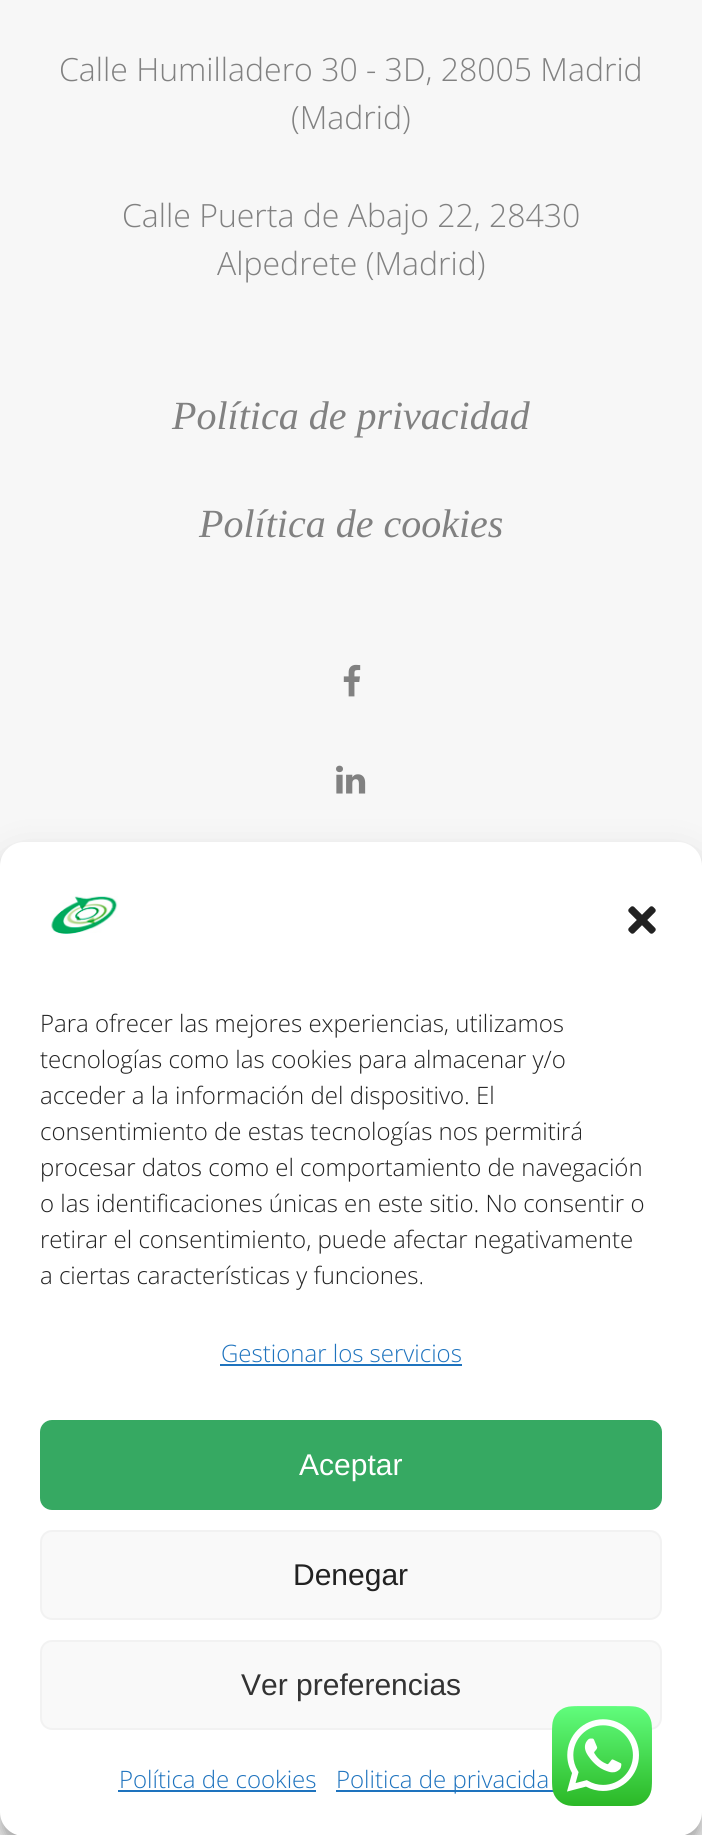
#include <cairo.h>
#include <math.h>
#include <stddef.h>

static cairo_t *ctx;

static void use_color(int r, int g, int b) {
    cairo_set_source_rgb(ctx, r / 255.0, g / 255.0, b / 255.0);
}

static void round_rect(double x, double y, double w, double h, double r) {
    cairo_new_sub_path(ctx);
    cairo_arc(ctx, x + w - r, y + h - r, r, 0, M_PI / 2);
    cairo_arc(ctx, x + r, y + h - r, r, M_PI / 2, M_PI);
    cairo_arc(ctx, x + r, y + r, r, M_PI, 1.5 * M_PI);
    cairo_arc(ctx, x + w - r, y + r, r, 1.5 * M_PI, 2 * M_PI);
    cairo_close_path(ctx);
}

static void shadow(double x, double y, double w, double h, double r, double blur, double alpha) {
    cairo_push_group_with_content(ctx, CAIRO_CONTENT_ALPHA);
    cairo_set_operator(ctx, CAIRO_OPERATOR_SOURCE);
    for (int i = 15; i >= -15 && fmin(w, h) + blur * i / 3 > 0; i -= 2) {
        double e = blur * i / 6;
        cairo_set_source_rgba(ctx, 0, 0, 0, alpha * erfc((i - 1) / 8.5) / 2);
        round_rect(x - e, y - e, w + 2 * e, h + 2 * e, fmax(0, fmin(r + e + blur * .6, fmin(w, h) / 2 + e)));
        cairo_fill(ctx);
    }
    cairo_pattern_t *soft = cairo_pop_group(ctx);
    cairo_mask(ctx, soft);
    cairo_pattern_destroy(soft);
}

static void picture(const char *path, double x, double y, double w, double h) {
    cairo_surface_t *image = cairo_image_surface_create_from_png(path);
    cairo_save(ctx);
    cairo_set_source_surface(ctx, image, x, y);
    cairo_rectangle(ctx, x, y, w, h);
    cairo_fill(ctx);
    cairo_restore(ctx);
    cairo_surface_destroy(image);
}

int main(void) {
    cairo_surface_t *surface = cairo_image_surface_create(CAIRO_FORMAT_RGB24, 702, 1835);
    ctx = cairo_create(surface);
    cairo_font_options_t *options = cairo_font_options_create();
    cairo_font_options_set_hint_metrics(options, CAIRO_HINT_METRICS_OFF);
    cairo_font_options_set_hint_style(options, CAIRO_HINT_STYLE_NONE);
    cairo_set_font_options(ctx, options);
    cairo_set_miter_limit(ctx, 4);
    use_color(255, 255, 255);
    cairo_paint(ctx);
    use_color(247, 247, 247);
    cairo_rectangle(ctx, 0, 0, 702, 866);
    cairo_fill(ctx);
    cairo_select_font_face(ctx, "Open Sans Light", CAIRO_FONT_SLANT_NORMAL, CAIRO_FONT_WEIGHT_NORMAL);
    cairo_set_font_size(ctx, 32);
    use_color(129, 129, 129);
    cairo_move_to(ctx, 59, 81);
    cairo_show_text(ctx, "Calle Humilladero 30 - 3D, 28005 Madrid");
    cairo_move_to(ctx, 291, 129);
    cairo_show_text(ctx, "(Madrid)");
    cairo_move_to(ctx, 122, 227);
    cairo_show_text(ctx, "Calle Puerta de Abajo 22, 28430");
    cairo_move_to(ctx, 217, 275);
    cairo_show_text(ctx, "Alpedrete (Madrid)");
    cairo_select_font_face(ctx, "Liberation Serif", CAIRO_FONT_SLANT_ITALIC, CAIRO_FONT_WEIGHT_NORMAL);
    cairo_set_font_size(ctx, 40);
    cairo_move_to(ctx, 172, 429);
    cairo_show_text(ctx, "Política de privacidad");
    cairo_move_to(ctx, 199, 537);
    cairo_show_text(ctx, "Política de cookies");
    picture("img1.png", 343, 664, 18, 33);
    picture("img2.png", 336, 765, 30, 29);
    use_color(0, 0, 0);
    shadow(0, 854, 702, 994, 24, 6, 0.23);
    shadow(0, 862, 702, 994, 24, 20, 0.19);
    use_color(255, 255, 255);
    round_rect(0, 842, 702, 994, 24);
    cairo_fill(ctx);
    picture("img3.png", 51, 896, 67, 38);
    picture("img4.png", 628, 906, 28, 28);
    cairo_select_font_face(ctx, "Open Sans Light", CAIRO_FONT_SLANT_NORMAL, CAIRO_FONT_WEIGHT_NORMAL);
    cairo_set_font_size(ctx, 24);
    use_color(34, 34, 34);
    cairo_move_to(ctx, 40, 1032);
    cairo_show_text(ctx, "Para ofrecer las mejores experiencias, utilizamos");
    cairo_move_to(ctx, 40, 1068);
    cairo_show_text(ctx, "tecnologías como las cookies para almacenar y/o");
    cairo_move_to(ctx, 40, 1104);
    cairo_show_text(ctx, "acceder a la información del dispositivo. El");
    cairo_move_to(ctx, 40, 1140);
    cairo_show_text(ctx, "consentimiento de estas tecnologías nos permitirá");
    cairo_move_to(ctx, 40, 1176);
    cairo_show_text(ctx, "procesar datos como el comportamiento de navegación");
    cairo_move_to(ctx, 40, 1212);
    cairo_show_text(ctx, "o las identificaciones únicas en este sitio. No consentir o");
    cairo_move_to(ctx, 40, 1248);
    cairo_show_text(ctx, "retirar el consentimiento, puede afectar negativamente");
    cairo_move_to(ctx, 40, 1284);
    cairo_show_text(ctx, "a ciertas características y funciones.");
    use_color(30, 115, 190);
    cairo_move_to(ctx, 221, 1362);
    cairo_show_text(ctx, "Gestionar los servicios");
    cairo_rectangle(ctx, 220, 1364, 242, 2);
    cairo_fill(ctx);
    use_color(54, 169, 98);
    round_rect(41, 1421, 620, 88, 11);
    cairo_fill_preserve(ctx);
    cairo_stroke(ctx);
    cairo_select_font_face(ctx, "Liberation Sans", CAIRO_FONT_SLANT_NORMAL, CAIRO_FONT_WEIGHT_NORMAL);
    cairo_set_font_size(ctx, 30);
    use_color(255, 255, 255);
    cairo_move_to(ctx, 299, 1475);
    cairo_show_text(ctx, "Aceptar");
    use_color(249, 249, 249);
    round_rect(41, 1531, 620, 88, 11);
    cairo_fill_preserve(ctx);
    use_color(242, 242, 242);
    cairo_stroke(ctx);
    use_color(34, 34, 34);
    cairo_move_to(ctx, 293, 1585);
    cairo_show_text(ctx, "Denegar");
    use_color(249, 249, 249);
    round_rect(41, 1641, 620, 88, 11);
    cairo_fill_preserve(ctx);
    use_color(242, 242, 242);
    cairo_stroke(ctx);
    use_color(51, 51, 51);
    cairo_move_to(ctx, 241, 1695);
    cairo_show_text(ctx, "Ver preferencias");
    cairo_select_font_face(ctx, "Open Sans Light", CAIRO_FONT_SLANT_NORMAL, CAIRO_FONT_WEIGHT_NORMAL);
    cairo_set_font_size(ctx, 24);
    use_color(30, 115, 190);
    cairo_move_to(ctx, 119, 1788);
    cairo_show_text(ctx, "Política de cookies");
    cairo_rectangle(ctx, 118, 1790, 198, 2);
    cairo_fill(ctx);
    cairo_rectangle(ctx, 336, 1790, 218, 2);
    cairo_fill(ctx);
    cairo_move_to(ctx, 336, 1788);
    cairo_show_text(ctx, "Politica de privacida");
    picture("img5.png", 552, 1706, 100, 100);
    cairo_surface_write_to_png(surface, "result.png");
    cairo_font_options_destroy(options);
    cairo_destroy(ctx);
    cairo_surface_destroy(surface);
    return 0;
}
